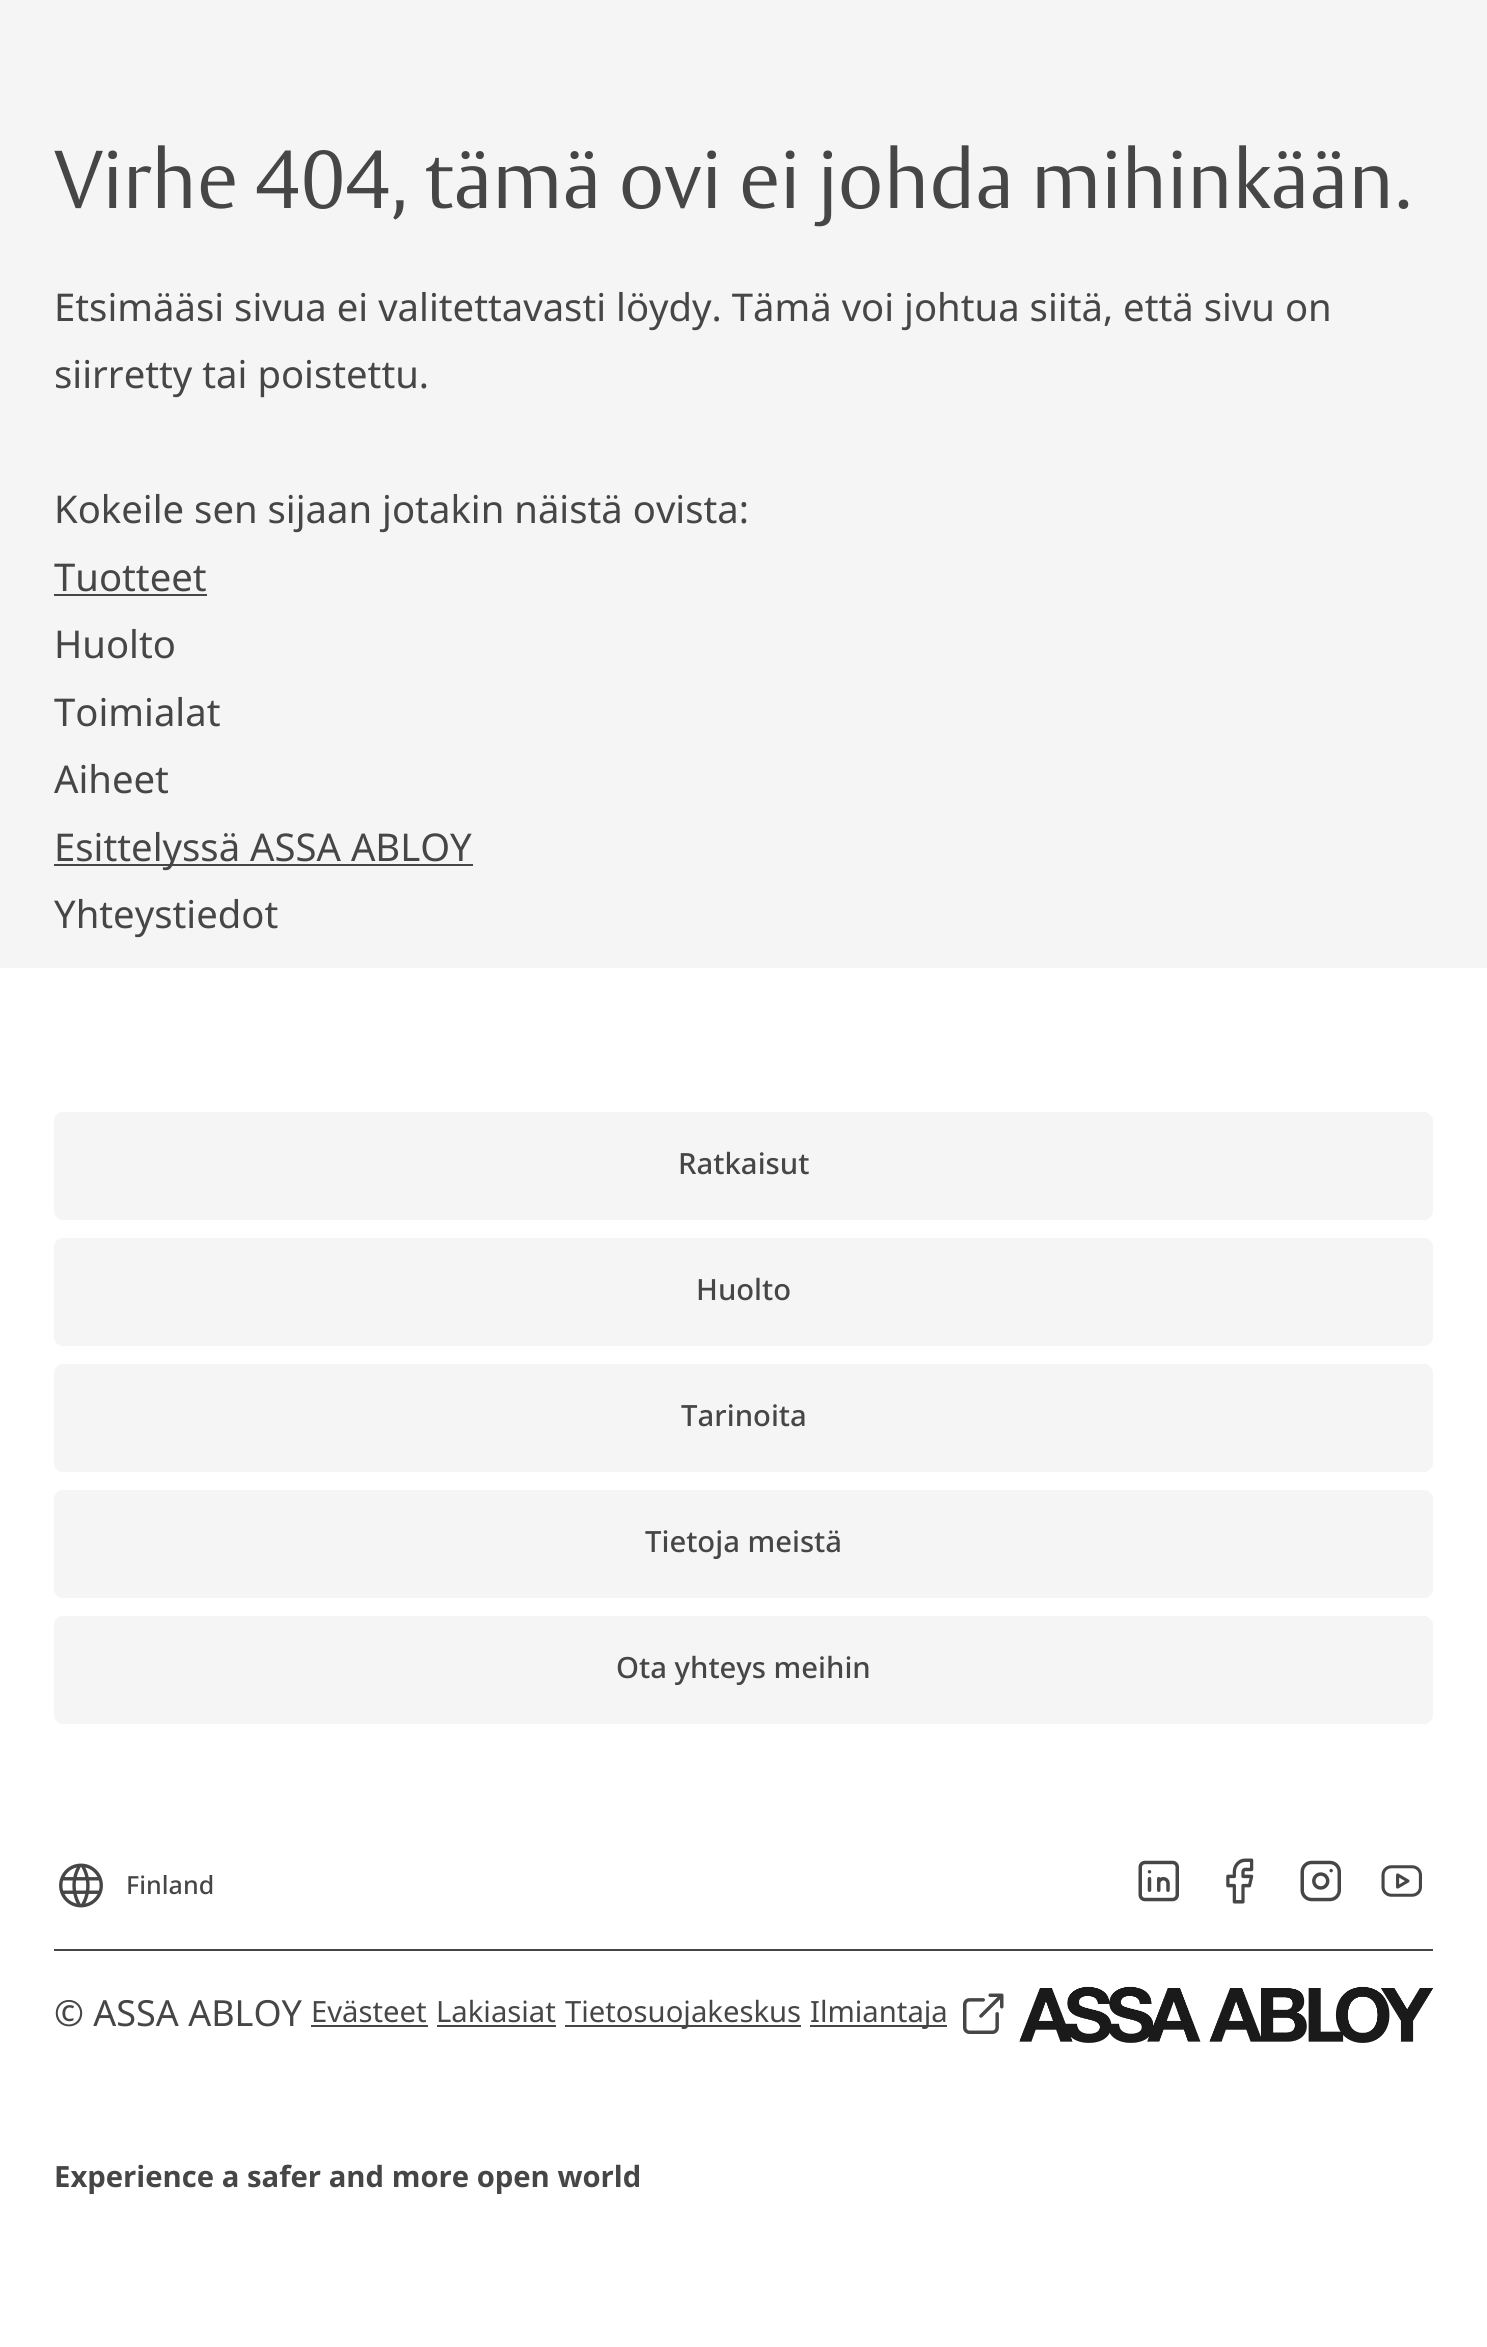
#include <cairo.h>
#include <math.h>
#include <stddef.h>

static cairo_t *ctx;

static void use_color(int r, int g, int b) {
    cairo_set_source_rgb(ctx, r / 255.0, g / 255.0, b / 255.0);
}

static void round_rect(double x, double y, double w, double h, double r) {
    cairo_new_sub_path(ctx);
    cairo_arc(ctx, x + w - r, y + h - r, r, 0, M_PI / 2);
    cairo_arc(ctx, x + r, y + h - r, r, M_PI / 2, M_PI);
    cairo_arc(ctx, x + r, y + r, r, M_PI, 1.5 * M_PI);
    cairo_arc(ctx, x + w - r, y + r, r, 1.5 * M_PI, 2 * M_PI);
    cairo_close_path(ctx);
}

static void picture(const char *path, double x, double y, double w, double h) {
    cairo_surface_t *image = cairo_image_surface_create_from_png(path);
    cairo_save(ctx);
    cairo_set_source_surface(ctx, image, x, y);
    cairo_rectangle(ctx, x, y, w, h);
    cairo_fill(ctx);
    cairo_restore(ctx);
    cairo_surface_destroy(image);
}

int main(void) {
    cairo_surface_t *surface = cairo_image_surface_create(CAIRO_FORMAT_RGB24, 1487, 2347);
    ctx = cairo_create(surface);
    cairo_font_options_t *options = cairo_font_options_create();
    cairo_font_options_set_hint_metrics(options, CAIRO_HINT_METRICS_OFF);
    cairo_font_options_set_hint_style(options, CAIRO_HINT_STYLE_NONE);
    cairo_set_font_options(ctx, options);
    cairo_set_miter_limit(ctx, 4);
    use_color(255, 255, 255);
    cairo_paint(ctx);
    use_color(245, 245, 245);
    cairo_rectangle(ctx, 0, 0, 1487, 968);
    cairo_fill(ctx);
    cairo_select_font_face(ctx, "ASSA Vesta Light", CAIRO_FONT_SLANT_NORMAL, CAIRO_FONT_WEIGHT_NORMAL);
    cairo_set_font_size(ctx, 81);
    use_color(70, 70, 70);
    cairo_move_to(ctx, 54, 208);
    cairo_show_text(ctx, "Virhe 404, tämä ovi ei johda mihinkään.");
    cairo_select_font_face(ctx, "Noto Sans", CAIRO_FONT_SLANT_NORMAL, CAIRO_FONT_WEIGHT_NORMAL);
    cairo_set_font_size(ctx, 38.25);
    cairo_move_to(ctx, 54, 321);
    cairo_show_text(ctx, "Etsimääsi sivua ei valitettavasti löydy. Tämä voi johtua siitä, että sivu on");
    cairo_move_to(ctx, 54, 388);
    cairo_show_text(ctx, "siirretty tai poistettu.");
    cairo_move_to(ctx, 54, 523);
    cairo_show_text(ctx, "Kokeile sen sijaan jotakin näistä ovista:");
    cairo_move_to(ctx, 54, 591);
    cairo_show_text(ctx, "Tuotteet");
    cairo_rectangle(ctx, 54, 594, 153, 2);
    cairo_fill(ctx);
    cairo_move_to(ctx, 54, 658);
    cairo_show_text(ctx, "Huolto");
    cairo_move_to(ctx, 54, 726);
    cairo_show_text(ctx, "Toimialat");
    cairo_move_to(ctx, 54, 793);
    cairo_show_text(ctx, "Aiheet");
    cairo_rectangle(ctx, 54, 864, 419, 2);
    cairo_fill(ctx);
    cairo_move_to(ctx, 54, 861);
    cairo_show_text(ctx, "Esittelyssä ASSA ABLOY");
    cairo_move_to(ctx, 54, 928);
    cairo_show_text(ctx, "Yhteystiedot");
    use_color(245, 245, 245);
    round_rect(54, 1112, 1379, 108, 9);
    cairo_fill(ctx);
    cairo_select_font_face(ctx, "Noto Sans Medium", CAIRO_FONT_SLANT_NORMAL, CAIRO_FONT_WEIGHT_NORMAL);
    cairo_set_font_size(ctx, 29.25);
    use_color(70, 70, 70);
    cairo_move_to(ctx, 678, 1174);
    cairo_show_text(ctx, "Ratkaisut");
    use_color(245, 245, 245);
    round_rect(54, 1238, 1379, 108, 9);
    cairo_fill(ctx);
    use_color(70, 70, 70);
    cairo_move_to(ctx, 696, 1300);
    cairo_show_text(ctx, "Huolto");
    use_color(245, 245, 245);
    round_rect(54, 1364, 1379, 108, 9);
    cairo_fill(ctx);
    use_color(70, 70, 70);
    cairo_move_to(ctx, 681, 1426);
    cairo_show_text(ctx, "Tarinoita");
    use_color(245, 245, 245);
    round_rect(54, 1490, 1379, 108, 9);
    cairo_fill(ctx);
    use_color(70, 70, 70);
    cairo_move_to(ctx, 645, 1552);
    cairo_show_text(ctx, "Tietoja meistä");
    use_color(245, 245, 245);
    round_rect(54, 1616, 1379, 108, 9);
    cairo_fill(ctx);
    use_color(70, 70, 70);
    cairo_move_to(ctx, 616, 1678);
    cairo_show_text(ctx, "Ota yhteys meihin");
    picture("img1.png", 59, 1863, 44, 45);
    cairo_set_font_size(ctx, 25);
    cairo_move_to(ctx, 126, 1894);
    cairo_show_text(ctx, "Finland");
    picture("img2.png", 1138, 1860, 41, 42);
    picture("img3.png", 1226, 1858, 28, 46);
    picture("img4.png", 1300, 1860, 41, 42);
    picture("img5.png", 1381, 1865, 41, 32);
    cairo_rectangle(ctx, 54, 1949, 1379, 2);
    cairo_fill(ctx);
    cairo_select_font_face(ctx, "Noto Sans", CAIRO_FONT_SLANT_NORMAL, CAIRO_FONT_WEIGHT_NORMAL);
    cairo_set_font_size(ctx, 36);
    cairo_move_to(ctx, 54, 2026);
    cairo_show_text(ctx, "© ASSA ABLOY");
    cairo_set_font_size(ctx, 29.25);
    cairo_move_to(ctx, 311, 2022);
    cairo_show_text(ctx, "Evästeet");
    cairo_rectangle(ctx, 311, 2025, 117, 2);
    cairo_fill(ctx);
    cairo_move_to(ctx, 436, 2022);
    cairo_show_text(ctx, "Lakiasiat");
    cairo_rectangle(ctx, 437, 2025, 119, 2);
    cairo_fill(ctx);
    cairo_rectangle(ctx, 565, 2025, 236, 2);
    cairo_fill(ctx);
    cairo_move_to(ctx, 565, 2022);
    cairo_show_text(ctx, "Tietosuojakeskus");
    cairo_rectangle(ctx, 810, 2025, 137, 2);
    cairo_fill(ctx);
    cairo_move_to(ctx, 810, 2022);
    cairo_show_text(ctx, "Ilmiantaja");
    picture("img6.png", 963, 1993, 41, 41);
    picture("img7.png", 1019, 1986, 415, 57);
    cairo_select_font_face(ctx, "Noto Sans", CAIRO_FONT_SLANT_NORMAL, CAIRO_FONT_WEIGHT_BOLD);
    cairo_move_to(ctx, 54, 2187);
    cairo_show_text(ctx, "Experience a safer and more open world");
    cairo_surface_write_to_png(surface, "result.png");
    cairo_font_options_destroy(options);
    cairo_destroy(ctx);
    cairo_surface_destroy(surface);
    return 0;
}
